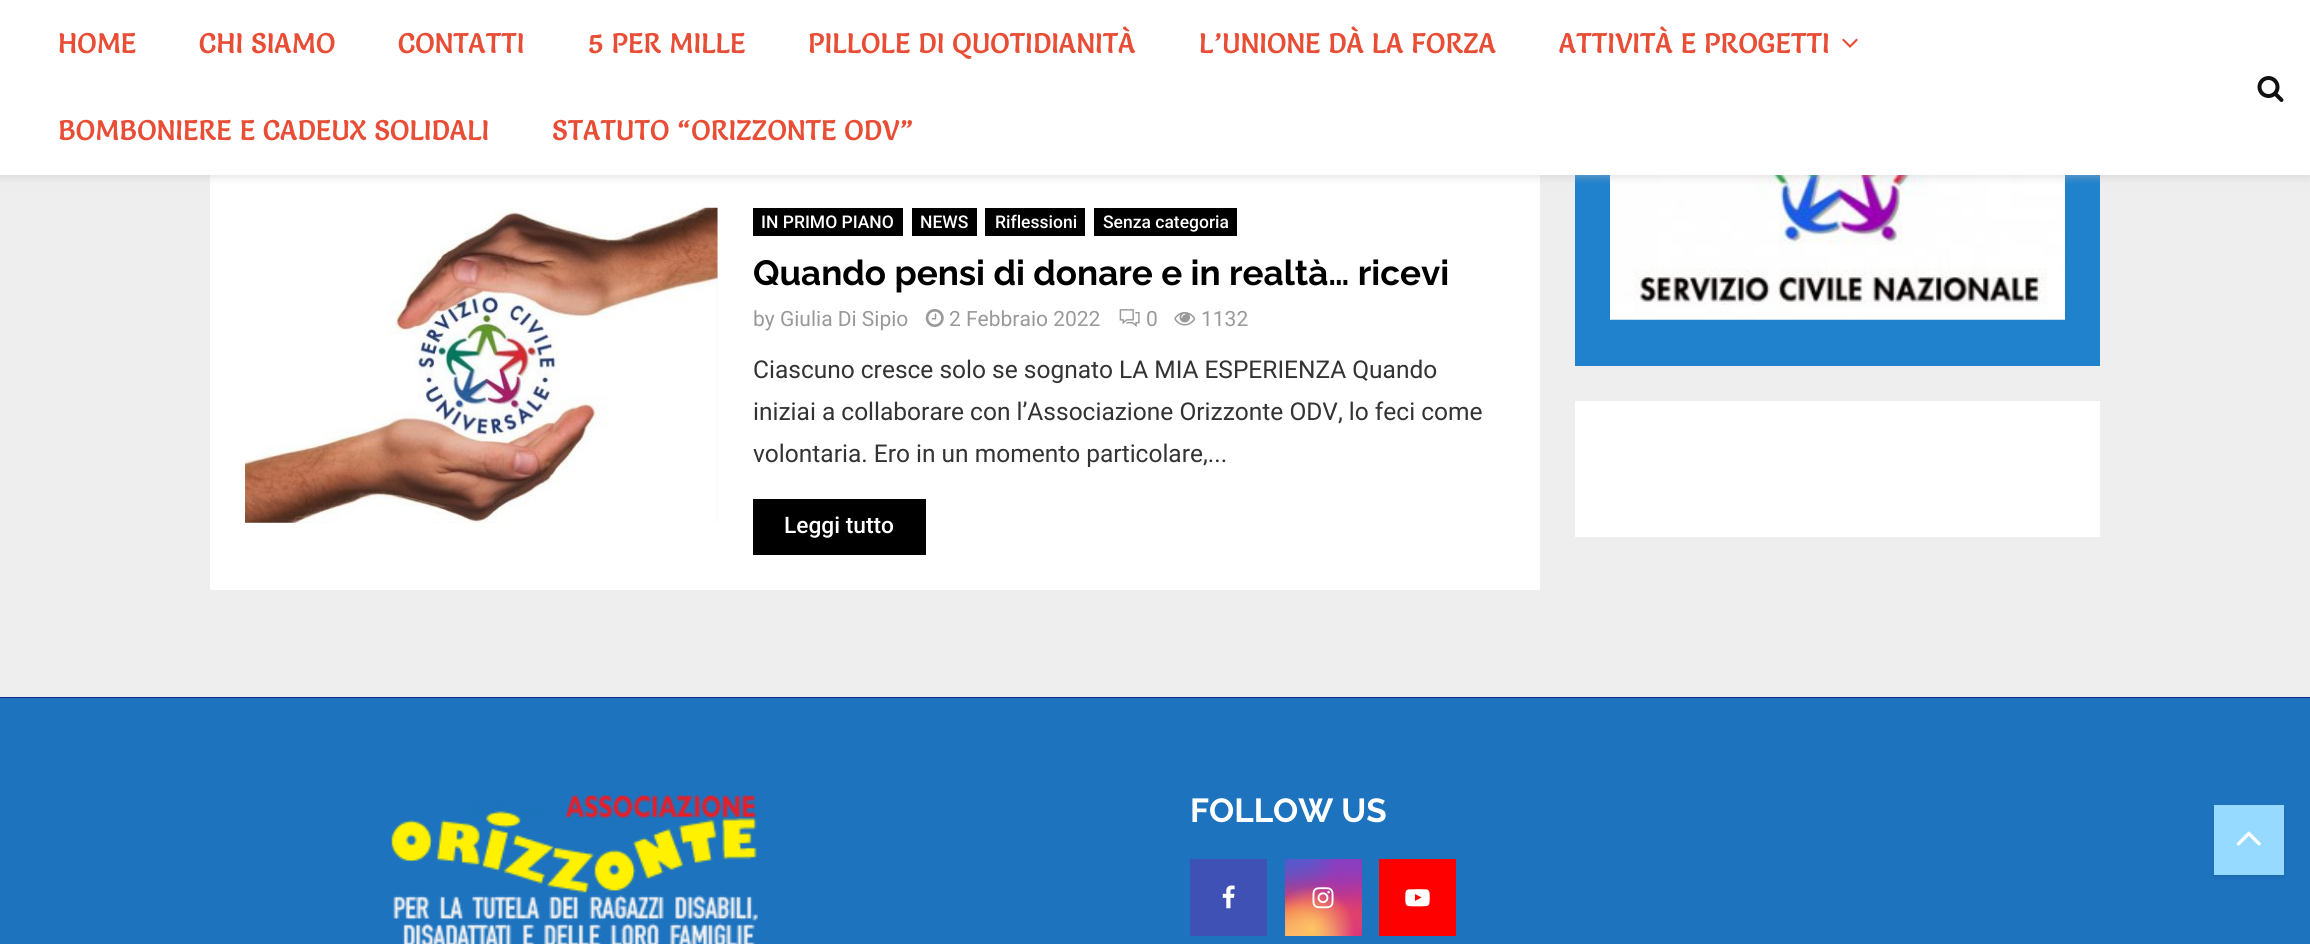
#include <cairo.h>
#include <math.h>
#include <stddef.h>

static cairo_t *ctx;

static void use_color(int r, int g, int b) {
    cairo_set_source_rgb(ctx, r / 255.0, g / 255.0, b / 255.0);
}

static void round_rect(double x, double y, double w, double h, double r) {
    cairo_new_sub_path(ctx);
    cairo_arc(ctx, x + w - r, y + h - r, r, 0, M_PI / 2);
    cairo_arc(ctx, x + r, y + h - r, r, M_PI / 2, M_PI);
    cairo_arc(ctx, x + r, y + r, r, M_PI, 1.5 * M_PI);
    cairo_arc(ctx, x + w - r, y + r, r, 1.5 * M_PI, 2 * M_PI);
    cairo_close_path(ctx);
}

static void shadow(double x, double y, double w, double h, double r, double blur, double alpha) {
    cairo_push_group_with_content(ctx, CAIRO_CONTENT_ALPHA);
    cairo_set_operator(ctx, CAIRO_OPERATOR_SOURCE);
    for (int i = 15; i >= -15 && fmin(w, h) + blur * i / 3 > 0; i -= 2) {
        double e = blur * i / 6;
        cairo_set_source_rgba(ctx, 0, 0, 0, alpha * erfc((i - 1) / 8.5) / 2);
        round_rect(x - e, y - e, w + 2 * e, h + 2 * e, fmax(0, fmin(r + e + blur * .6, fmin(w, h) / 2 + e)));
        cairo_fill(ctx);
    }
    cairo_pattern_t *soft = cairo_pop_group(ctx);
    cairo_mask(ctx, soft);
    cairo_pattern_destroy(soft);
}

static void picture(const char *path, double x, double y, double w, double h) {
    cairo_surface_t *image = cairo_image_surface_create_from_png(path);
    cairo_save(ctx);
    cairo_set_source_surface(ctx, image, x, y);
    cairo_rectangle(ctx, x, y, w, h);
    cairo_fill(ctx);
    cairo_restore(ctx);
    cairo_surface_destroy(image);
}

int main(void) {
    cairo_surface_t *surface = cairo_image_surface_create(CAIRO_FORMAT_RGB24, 2310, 944);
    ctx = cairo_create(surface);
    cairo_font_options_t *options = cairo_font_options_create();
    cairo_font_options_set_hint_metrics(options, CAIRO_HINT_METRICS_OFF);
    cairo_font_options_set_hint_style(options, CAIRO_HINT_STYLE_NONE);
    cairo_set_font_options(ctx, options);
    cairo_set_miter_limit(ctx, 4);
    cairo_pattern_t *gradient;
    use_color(238, 238, 238);
    cairo_paint(ctx);
    use_color(255, 255, 255);
    cairo_rectangle(ctx, 210, 175, 1330, 415);
    cairo_fill(ctx);
    use_color(32, 129, 204);
    cairo_rectangle(ctx, 1575, 175, 525, 191);
    cairo_fill(ctx);
    picture("img7.png", 1610, 175, 455, 145);
    use_color(190, 190, 190);
    shadow(0, 2, 2310, 175, 0, 4.5, 0.46);
    use_color(255, 255, 255);
    cairo_rectangle(ctx, 0, 0, 2310, 175);
    cairo_fill(ctx);
    cairo_select_font_face(ctx, "Salsa", CAIRO_FONT_SLANT_NORMAL, CAIRO_FONT_WEIGHT_NORMAL);
    cairo_set_font_size(ctx, 28);
    use_color(232, 77, 53);
    cairo_move_to(ctx, 58, 53);
    cairo_show_text(ctx, "HOME");
    cairo_move_to(ctx, 199, 53);
    cairo_show_text(ctx, "CHI SIAMO");
    cairo_move_to(ctx, 398, 53);
    cairo_show_text(ctx, "CONTATTI");
    cairo_move_to(ctx, 588, 53);
    cairo_show_text(ctx, "5 PER MILLE");
    cairo_move_to(ctx, 808, 53);
    cairo_show_text(ctx, "PILLOLE DI QUOTIDIANITÀ");
    cairo_move_to(ctx, 1199, 53);
    cairo_show_text(ctx, "L’UNIONE DÀ LA FORZA");
    cairo_move_to(ctx, 1559, 53);
    cairo_show_text(ctx, "ATTIVITÀ E PROGETTI");
    picture("img1.png", 1842, 38, 16, 10);
    cairo_move_to(ctx, 58, 140);
    cairo_show_text(ctx, "BOMBONIERE E CADEUX SOLIDALI");
    cairo_move_to(ctx, 552, 140);
    cairo_show_text(ctx, "STATUTO “ORIZZONTE ODV”");
    picture("img2.png", 2257, 76, 27, 26);
    use_color(245, 245, 245);
    cairo_rectangle(ctx, 245, 208, 473, 315);
    cairo_fill(ctx);
    picture("img3.png", 245, 207, 473, 316);
    use_color(0, 0, 0);
    cairo_rectangle(ctx, 753, 208, 150, 28);
    cairo_fill(ctx);
    cairo_select_font_face(ctx, "Roboto Medium", CAIRO_FONT_SLANT_NORMAL, CAIRO_FONT_WEIGHT_NORMAL);
    cairo_set_font_size(ctx, 17.5);
    use_color(255, 255, 255);
    cairo_move_to(ctx, 761, 228);
    cairo_show_text(ctx, "IN PRIMO PIANO");
    use_color(0, 0, 0);
    cairo_rectangle(ctx, 912, 208, 65, 28);
    cairo_fill(ctx);
    use_color(255, 255, 255);
    cairo_move_to(ctx, 920, 228);
    cairo_show_text(ctx, "NEWS");
    use_color(0, 0, 0);
    cairo_rectangle(ctx, 985, 208, 100, 28);
    cairo_fill(ctx);
    use_color(255, 255, 255);
    cairo_move_to(ctx, 995, 228);
    cairo_show_text(ctx, "Riflessioni");
    use_color(0, 0, 0);
    cairo_rectangle(ctx, 1094, 208, 143, 28);
    cairo_fill(ctx);
    use_color(255, 255, 255);
    cairo_move_to(ctx, 1103, 228);
    cairo_show_text(ctx, "Senza categoria");
    cairo_select_font_face(ctx, "Raleway", CAIRO_FONT_SLANT_NORMAL, CAIRO_FONT_WEIGHT_BOLD);
    cairo_set_font_size(ctx, 35);
    use_color(0, 0, 0);
    cairo_move_to(ctx, 753, 285);
    cairo_show_text(ctx, "Quando pensi di donare e in realtà… ricevi");
    cairo_select_font_face(ctx, "Roboto", CAIRO_FONT_SLANT_NORMAL, CAIRO_FONT_WEIGHT_NORMAL);
    cairo_set_font_size(ctx, 21);
    use_color(153, 153, 153);
    cairo_move_to(ctx, 753, 326);
    cairo_show_text(ctx, "by Giulia Di Sipio");
    picture("img4.png", 925, 309, 19, 18);
    cairo_move_to(ctx, 949, 326);
    cairo_show_text(ctx, "2 Febbraio 2022");
    picture("img5.png", 1119, 309, 21, 18);
    cairo_move_to(ctx, 1146, 326);
    cairo_show_text(ctx, "0");
    picture("img6.png", 1174, 312, 22, 14);
    cairo_move_to(ctx, 1201, 326);
    cairo_show_text(ctx, "1132");
    cairo_set_font_size(ctx, 24.5);
    use_color(51, 51, 51);
    cairo_move_to(ctx, 753, 378);
    cairo_show_text(ctx, "Ciascuno cresce solo se sognato LA MIA ESPERIENZA Quando");
    cairo_move_to(ctx, 753, 420);
    cairo_show_text(ctx, "iniziai a collaborare con l’Associazione Orizzonte ODV, lo feci come");
    cairo_move_to(ctx, 753, 462);
    cairo_show_text(ctx, "volontaria. Ero in un momento particolare,...");
    use_color(0, 0, 0);
    cairo_rectangle(ctx, 753, 499, 173, 56);
    cairo_fill(ctx);
    cairo_select_font_face(ctx, "Roboto Medium", CAIRO_FONT_SLANT_NORMAL, CAIRO_FONT_WEIGHT_NORMAL);
    cairo_set_font_size(ctx, 22.75);
    use_color(255, 255, 255);
    cairo_move_to(ctx, 784, 533);
    cairo_show_text(ctx, "Leggi tutto");
    cairo_rectangle(ctx, 1575, 401, 525, 136);
    cairo_fill(ctx);
    use_color(17, 43, 145);
    cairo_rectangle(ctx, 0, 697, 2310, 1);
    cairo_fill(ctx);
    use_color(30, 115, 190);
    cairo_rectangle(ctx, 0, 698, 2310, 246);
    cairo_fill(ctx);
    picture("img8.png", 391, 795, 367, 149);
    cairo_select_font_face(ctx, "Raleway", CAIRO_FONT_SLANT_NORMAL, CAIRO_FONT_WEIGHT_BOLD);
    cairo_set_font_size(ctx, 33.25);
    use_color(255, 255, 255);
    cairo_move_to(ctx, 1190, 822);
    cairo_show_text(ctx, "FOLLOW US");
    use_color(63, 81, 181);
    cairo_rectangle(ctx, 1190, 859, 77, 77);
    cairo_fill(ctx);
    picture("img9.png", 1222, 885, 13, 24);
    gradient = cairo_pattern_create_linear(1323, 859, 1323, 936);
    cairo_pattern_add_color_stop_rgba(gradient, 0, 0.396, 0.349, 0.792, 1);
    cairo_pattern_add_color_stop_rgba(gradient, 0.3, 0.737, 0.192, 0.561, 1);
    cairo_pattern_add_color_stop_rgba(gradient, 0.5, 0.89, 0.247, 0.373, 1);
    cairo_pattern_add_color_stop_rgba(gradient, 0.7, 0.969, 0.463, 0.22, 1);
    cairo_pattern_add_color_stop_rgba(gradient, 1, 0.996, 0.776, 0.427, 1);
    cairo_set_source(ctx, gradient);
    cairo_pattern_destroy(gradient);
    cairo_rectangle(ctx, 1285, 859, 77, 77);
    cairo_fill(ctx);
    gradient = cairo_pattern_create_radial(1362, 936, 0, 1362, 936, 109);
    cairo_pattern_add_color_stop_rgba(gradient, 0, 0.851, 0.192, 0.478, 1);
    cairo_pattern_add_color_stop_rgba(gradient, 1, 0.851, 0.192, 0.478, 0);
    cairo_set_source(ctx, gradient);
    cairo_pattern_destroy(gradient);
    cairo_rectangle(ctx, 1285, 859, 77, 77);
    cairo_fill(ctx);
    gradient = cairo_pattern_create_radial(0, 0, 0, 0, 0, 1);
    cairo_pattern_set_matrix(gradient, &(cairo_matrix_t){1.0 / 65, 0, 0, 1.0 / 131, -1.0 * 1331 / 65, -1.0 * 844 / 131});
    cairo_pattern_add_color_stop_rgba(gradient, 0, 0.537, 0.239, 0.761, 1);
    cairo_pattern_add_color_stop_rgba(gradient, 0.5, 0.537, 0.239, 0.761, 0);
    cairo_set_source(ctx, gradient);
    cairo_pattern_destroy(gradient);
    cairo_rectangle(ctx, 1303, 859, 56, 49);
    cairo_fill(ctx);
    gradient = cairo_pattern_create_radial(1362, 859, 0, 1362, 859, 109);
    cairo_pattern_add_color_stop_rgba(gradient, 0, 0.537, 0.239, 0.761, 1);
    cairo_pattern_add_color_stop_rgba(gradient, 0.5, 0.537, 0.239, 0.761, 0);
    cairo_set_source(ctx, gradient);
    cairo_pattern_destroy(gradient);
    cairo_rectangle(ctx, 1314, 859, 48, 53);
    cairo_fill(ctx);
    gradient = cairo_pattern_create_radial(0, 0, 0, 0, 0, 1);
    cairo_pattern_set_matrix(gradient, &(cairo_matrix_t){1.0 / 87, 0, 0, 1.0 / 163, -1.0 * 1300 / 87, -1.0 * 821 / 163});
    cairo_pattern_add_color_stop_rgba(gradient, 0, 0.322, 0.345, 0.812, 1);
    cairo_pattern_add_color_stop_rgba(gradient, 0.5, 0.322, 0.345, 0.812, 0);
    cairo_set_source(ctx, gradient);
    cairo_pattern_destroy(gradient);
    cairo_rectangle(ctx, 1285, 859, 51, 42);
    cairo_fill(ctx);
    gradient = cairo_pattern_create_radial(0, 0, 0, 0, 0, 1);
    cairo_pattern_set_matrix(gradient, &(cairo_matrix_t){1.0 / 109, 0, 0, 1.0 / 136, -1.0 * 1285 / 109, -1.0 * 840 / 136});
    cairo_pattern_add_color_stop_rgba(gradient, 0, 0.322, 0.345, 0.812, 1);
    cairo_pattern_add_color_stop_rgba(gradient, 0.5, 0.322, 0.345, 0.812, 0);
    cairo_set_source(ctx, gradient);
    cairo_pattern_destroy(gradient);
    cairo_rectangle(ctx, 1285, 859, 49, 48);
    cairo_fill(ctx);
    gradient = cairo_pattern_create_radial(1285, 967, 0, 1285, 967, 132);
    cairo_pattern_add_color_stop_rgba(gradient, 0, 0.996, 0.773, 0.392, 1);
    cairo_pattern_add_color_stop_rgba(gradient, 0.5, 0.996, 0.773, 0.392, 0);
    cairo_set_source(ctx, gradient);
    cairo_pattern_destroy(gradient);
    cairo_rectangle(ctx, 1285, 902, 56, 34);
    cairo_fill(ctx);
    gradient = cairo_pattern_create_radial(1311, 929, 0, 1311, 929, 85);
    cairo_pattern_add_color_stop_rgba(gradient, 0, 0.996, 0.773, 0.392, 1);
    cairo_pattern_add_color_stop_rgba(gradient, 0.5, 0.996, 0.773, 0.392, 0);
    cairo_set_source(ctx, gradient);
    cairo_pattern_destroy(gradient);
    cairo_rectangle(ctx, 1285, 887, 68, 49);
    cairo_fill(ctx);
    picture("img10.png", 1312, 887, 22, 22);
    use_color(255, 0, 0);
    cairo_rectangle(ctx, 1379, 859, 77, 77);
    cairo_fill(ctx);
    picture("img11.png", 1405, 889, 25, 18);
    use_color(0, 0, 0);
    shadow(2214, 807, 70, 70, 0, 2, 0.1);
    use_color(150, 218, 255);
    cairo_rectangle(ctx, 2214, 805, 70, 70);
    cairo_fill(ctx);
    picture("img12.png", 2236, 831, 25, 15);
    cairo_surface_write_to_png(surface, "result.png");
    cairo_font_options_destroy(options);
    cairo_destroy(ctx);
    cairo_surface_destroy(surface);
    return 0;
}
